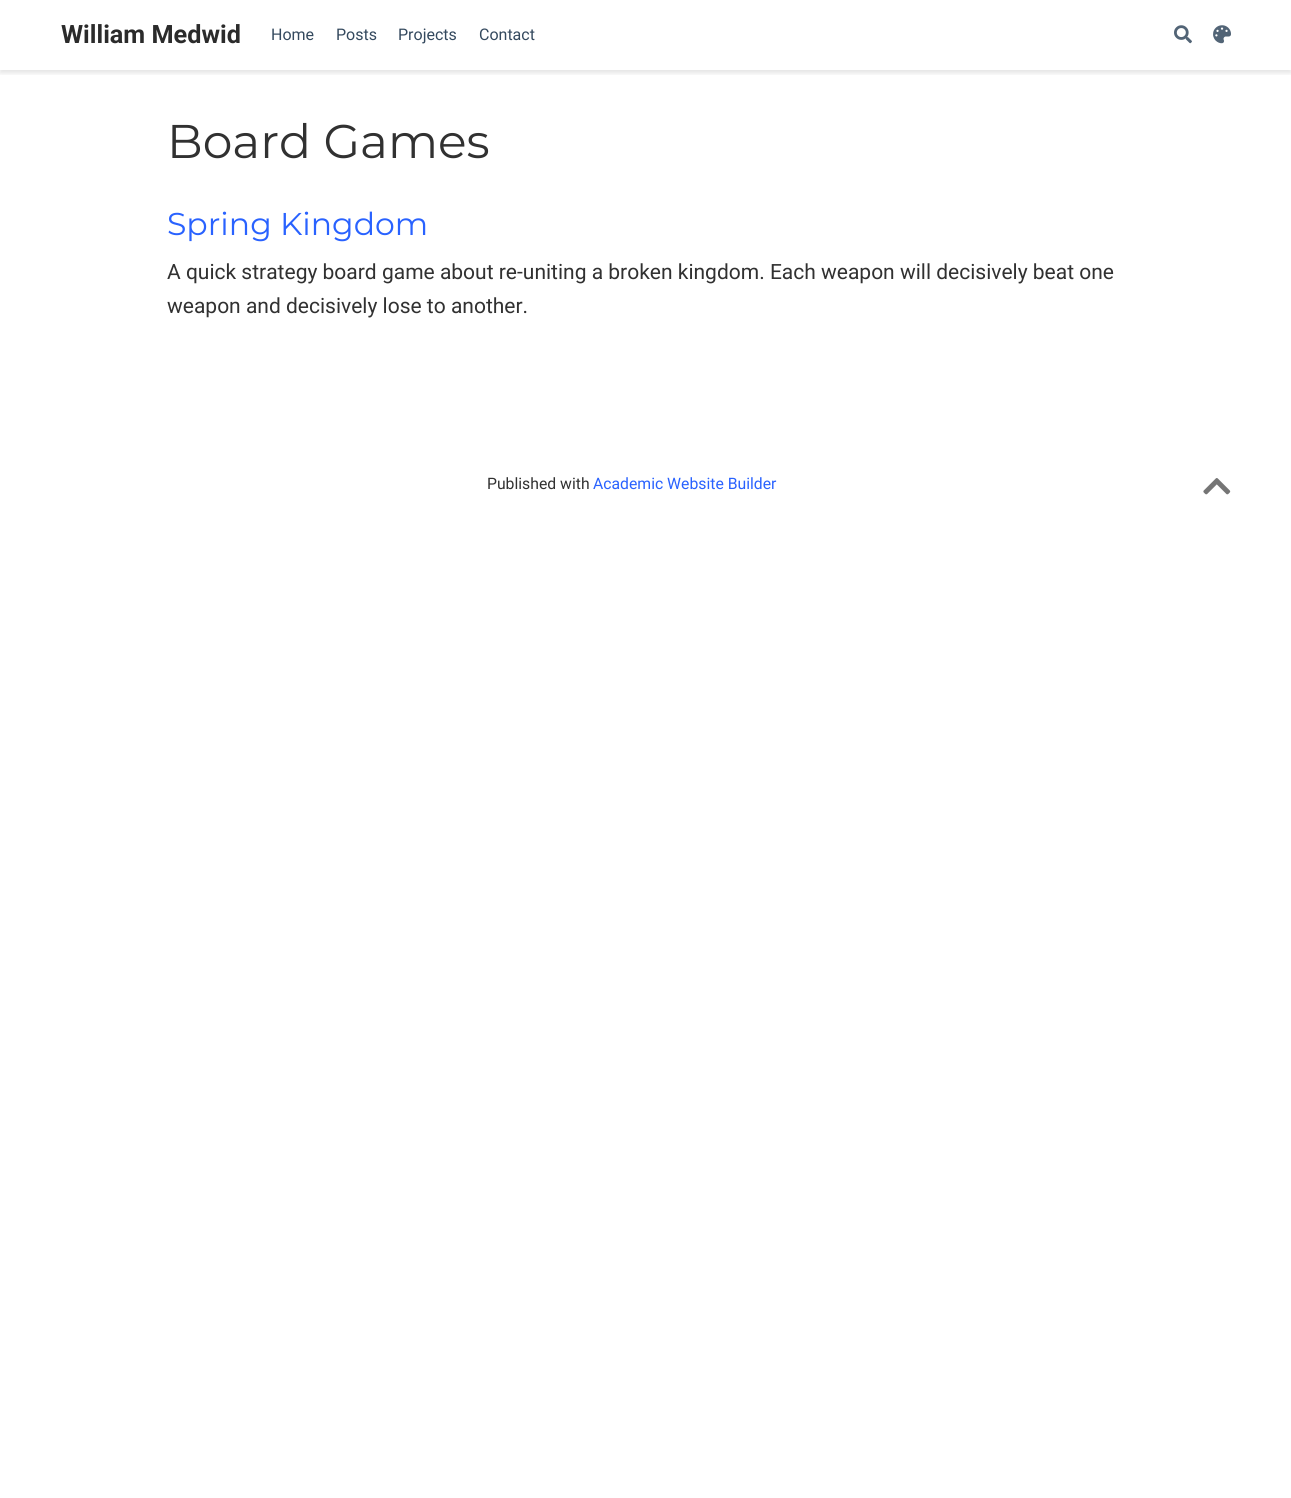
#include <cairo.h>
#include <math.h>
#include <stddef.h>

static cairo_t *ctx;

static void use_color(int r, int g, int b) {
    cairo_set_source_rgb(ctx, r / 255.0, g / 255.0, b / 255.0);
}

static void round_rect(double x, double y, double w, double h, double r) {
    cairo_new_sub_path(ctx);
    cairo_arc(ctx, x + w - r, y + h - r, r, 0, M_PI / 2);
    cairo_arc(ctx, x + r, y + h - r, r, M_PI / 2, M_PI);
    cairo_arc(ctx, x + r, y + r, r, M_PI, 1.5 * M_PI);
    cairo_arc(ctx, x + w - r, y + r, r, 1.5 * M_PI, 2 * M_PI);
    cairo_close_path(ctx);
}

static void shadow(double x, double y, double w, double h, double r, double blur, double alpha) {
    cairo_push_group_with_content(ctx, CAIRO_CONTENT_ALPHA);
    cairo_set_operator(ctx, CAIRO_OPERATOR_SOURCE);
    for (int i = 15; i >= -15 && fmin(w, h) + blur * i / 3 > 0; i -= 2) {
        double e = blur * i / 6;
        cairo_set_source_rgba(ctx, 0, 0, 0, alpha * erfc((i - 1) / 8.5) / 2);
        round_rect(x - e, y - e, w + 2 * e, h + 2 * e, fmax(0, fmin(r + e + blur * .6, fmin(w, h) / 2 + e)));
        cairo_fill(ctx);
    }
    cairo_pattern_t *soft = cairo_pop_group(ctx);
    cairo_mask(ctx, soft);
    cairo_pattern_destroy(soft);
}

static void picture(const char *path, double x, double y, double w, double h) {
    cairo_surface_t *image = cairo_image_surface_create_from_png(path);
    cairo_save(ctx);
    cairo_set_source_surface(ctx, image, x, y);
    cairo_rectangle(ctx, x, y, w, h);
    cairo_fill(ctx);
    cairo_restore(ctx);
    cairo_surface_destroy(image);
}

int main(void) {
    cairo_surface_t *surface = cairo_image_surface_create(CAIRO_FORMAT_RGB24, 1291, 1498);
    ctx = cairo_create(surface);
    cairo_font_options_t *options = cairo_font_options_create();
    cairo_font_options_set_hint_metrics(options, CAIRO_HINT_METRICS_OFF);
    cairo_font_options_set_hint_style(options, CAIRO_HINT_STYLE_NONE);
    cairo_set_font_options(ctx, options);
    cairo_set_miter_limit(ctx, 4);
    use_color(255, 255, 255);
    cairo_paint(ctx);
    cairo_save(ctx);
    cairo_rectangle(ctx, 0, 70, 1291, 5);
    cairo_clip(ctx);
    use_color(0, 0, 0);
    shadow(0, 3, 1291, 70, 0, 2.5, 0.11);
    cairo_restore(ctx);
    cairo_select_font_face(ctx, "Roboto", CAIRO_FONT_SLANT_NORMAL, CAIRO_FONT_WEIGHT_BOLD);
    cairo_set_font_size(ctx, 25.25);
    use_color(43, 43, 43);
    cairo_move_to(ctx, 61, 43);
    cairo_show_text(ctx, "William Medwid");
    cairo_select_font_face(ctx, "Roboto", CAIRO_FONT_SLANT_NORMAL, CAIRO_FONT_WEIGHT_NORMAL);
    cairo_set_font_size(ctx, 16);
    use_color(52, 73, 94);
    cairo_move_to(ctx, 271, 40);
    cairo_show_text(ctx, "Home");
    cairo_move_to(ctx, 336, 40);
    cairo_show_text(ctx, "Posts");
    cairo_move_to(ctx, 398, 40);
    cairo_show_text(ctx, "Projects");
    cairo_move_to(ctx, 479, 40);
    cairo_show_text(ctx, "Contact");
    picture("img1.png", 1174, 25, 18, 19);
    picture("img2.png", 1213, 25, 18, 19);
    cairo_select_font_face(ctx, "Montserrat", CAIRO_FONT_SLANT_NORMAL, CAIRO_FONT_WEIGHT_NORMAL);
    cairo_set_font_size(ctx, 47.25);
    use_color(49, 49, 49);
    cairo_move_to(ctx, 167, 158);
    cairo_show_text(ctx, "Board Games");
    cairo_set_font_size(ctx, 31.5);
    use_color(41, 98, 255);
    cairo_move_to(ctx, 167, 235);
    cairo_show_text(ctx, "Spring Kingdom");
    cairo_select_font_face(ctx, "Roboto", CAIRO_FONT_SLANT_NORMAL, CAIRO_FONT_WEIGHT_NORMAL);
    cairo_set_font_size(ctx, 21);
    use_color(49, 49, 49);
    cairo_move_to(ctx, 167, 279);
    cairo_show_text(ctx, "A quick strategy board game about re-uniting a broken kingdom. Each weapon will decisively beat one");
    cairo_move_to(ctx, 167, 313);
    cairo_show_text(ctx, "weapon and decisively lose to another.");
    cairo_set_font_size(ctx, 15.75);
    cairo_move_to(ctx, 487, 489);
    cairo_show_text(ctx, "Published with");
    use_color(41, 98, 255);
    cairo_move_to(ctx, 593, 489);
    cairo_show_text(ctx, "Academic Website Builder");
    picture("img3.png", 1203, 478, 28, 17);
    cairo_surface_write_to_png(surface, "result.png");
    cairo_font_options_destroy(options);
    cairo_destroy(ctx);
    cairo_surface_destroy(surface);
    return 0;
}
